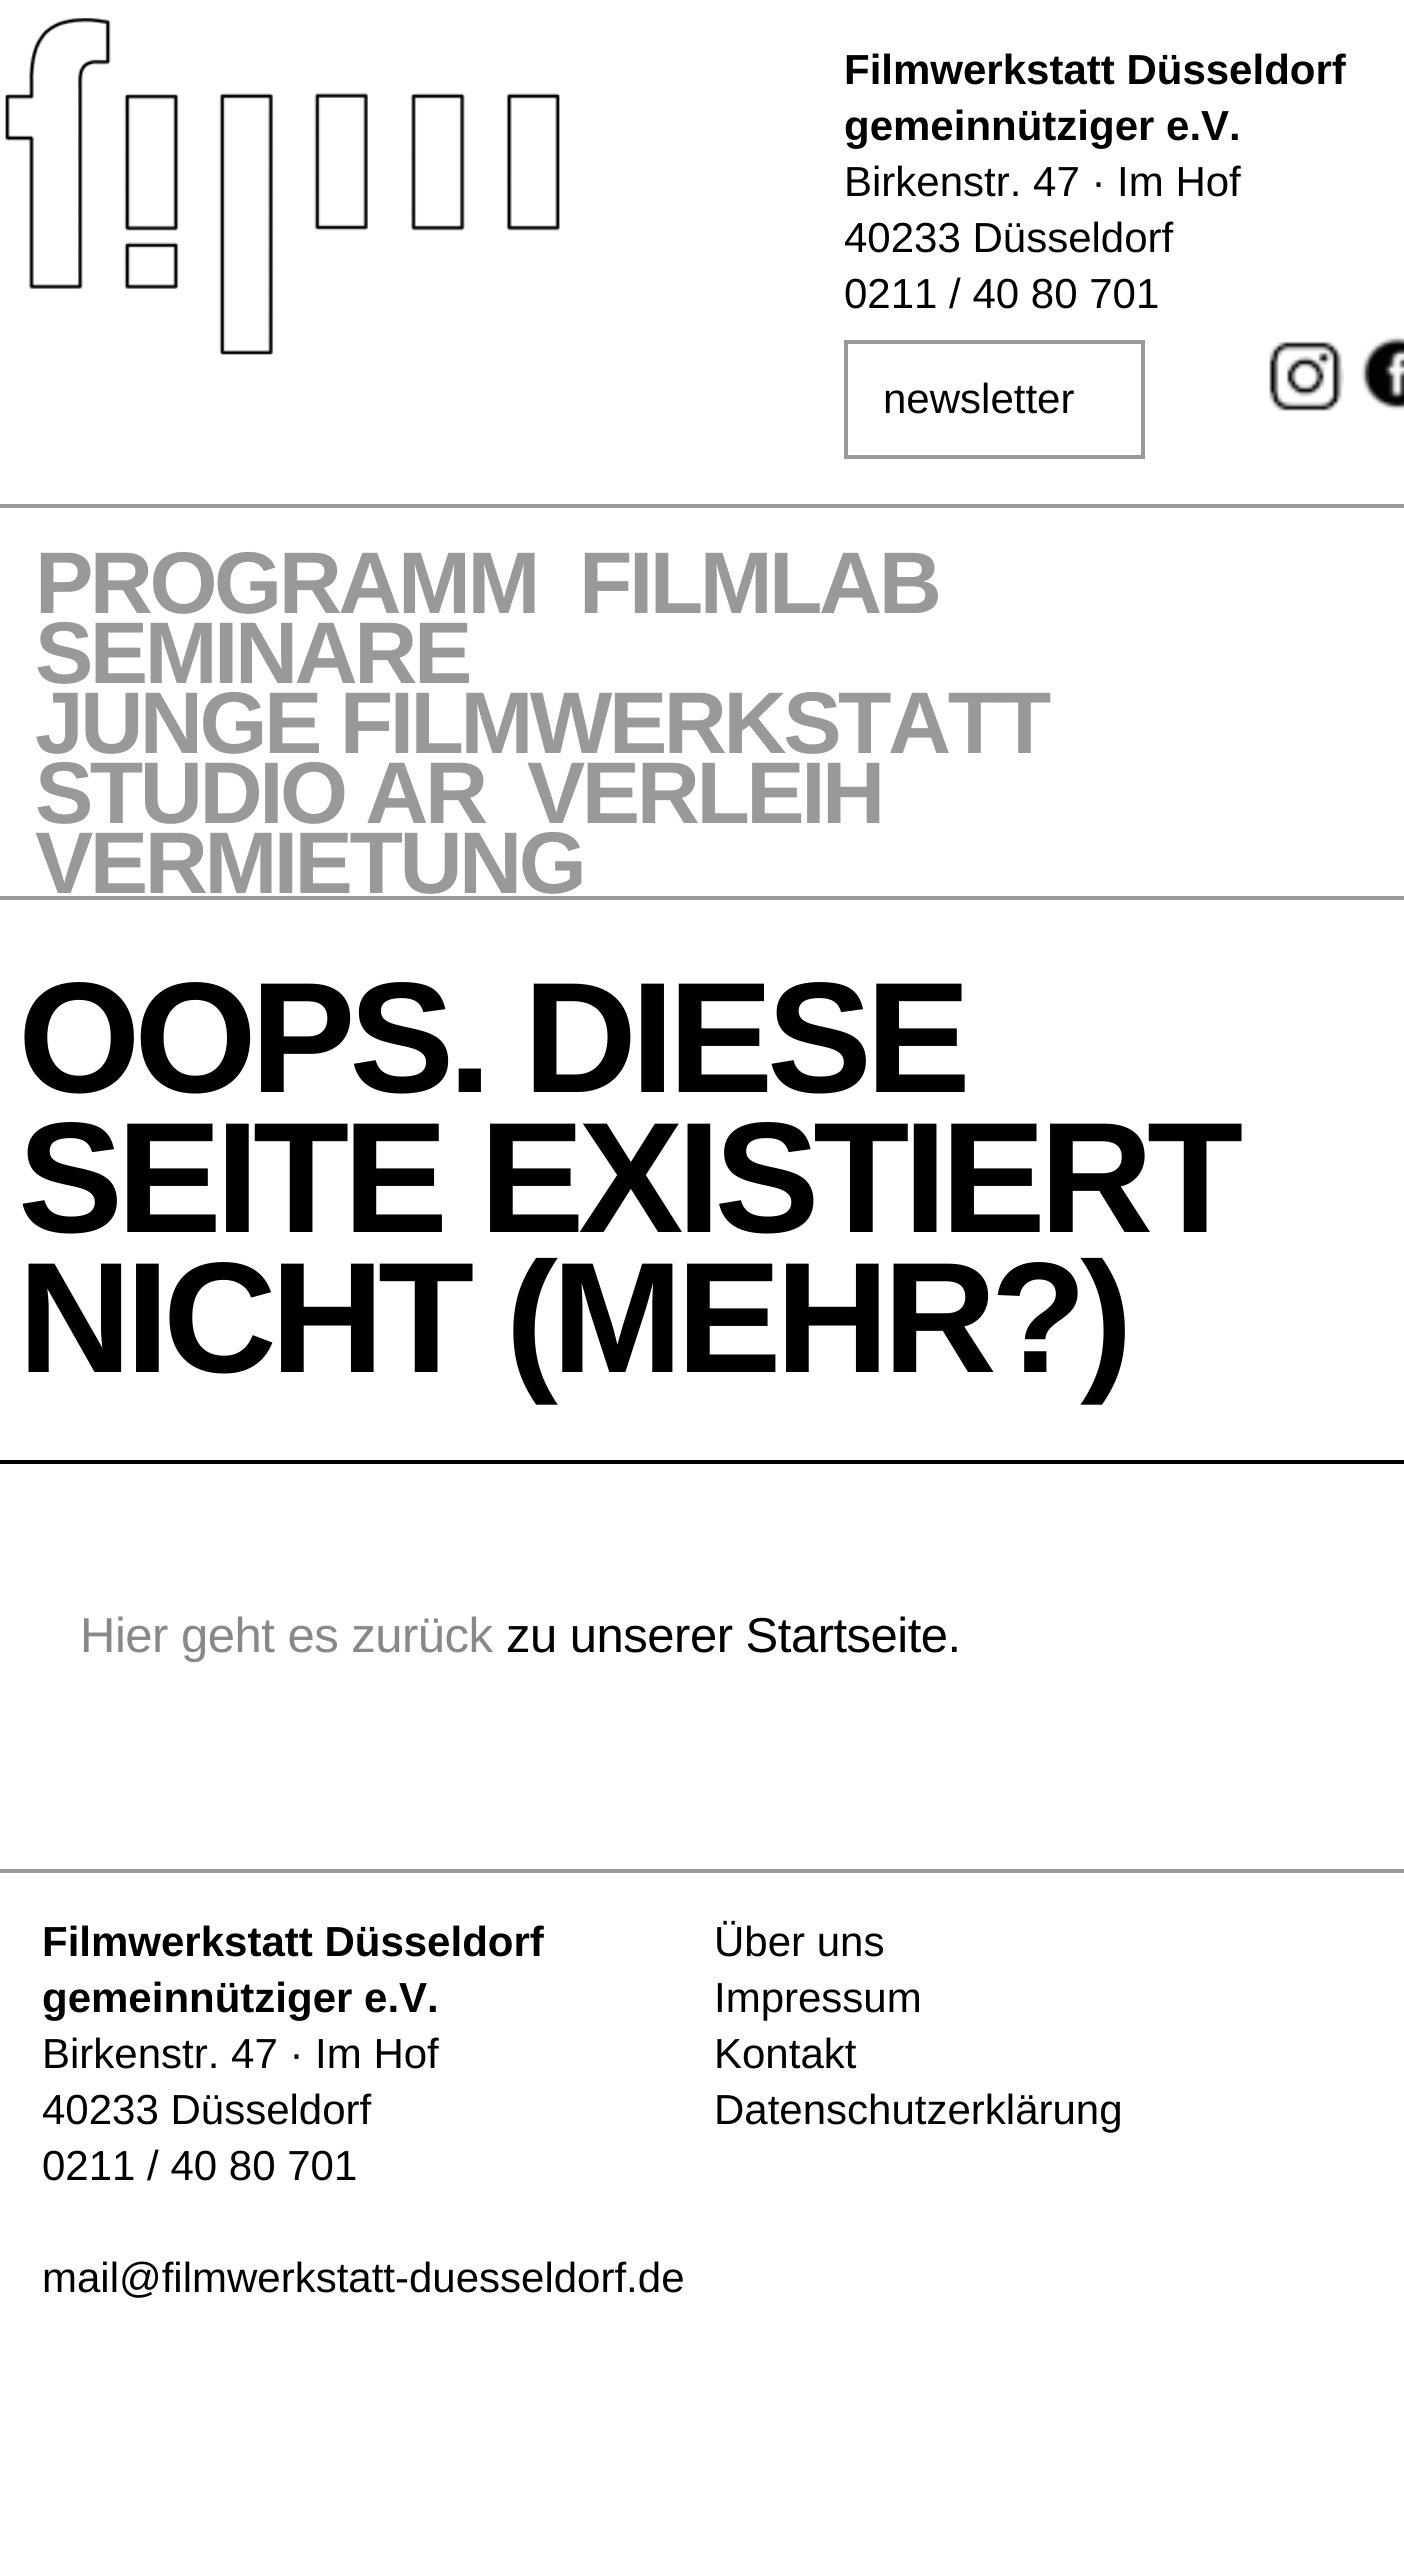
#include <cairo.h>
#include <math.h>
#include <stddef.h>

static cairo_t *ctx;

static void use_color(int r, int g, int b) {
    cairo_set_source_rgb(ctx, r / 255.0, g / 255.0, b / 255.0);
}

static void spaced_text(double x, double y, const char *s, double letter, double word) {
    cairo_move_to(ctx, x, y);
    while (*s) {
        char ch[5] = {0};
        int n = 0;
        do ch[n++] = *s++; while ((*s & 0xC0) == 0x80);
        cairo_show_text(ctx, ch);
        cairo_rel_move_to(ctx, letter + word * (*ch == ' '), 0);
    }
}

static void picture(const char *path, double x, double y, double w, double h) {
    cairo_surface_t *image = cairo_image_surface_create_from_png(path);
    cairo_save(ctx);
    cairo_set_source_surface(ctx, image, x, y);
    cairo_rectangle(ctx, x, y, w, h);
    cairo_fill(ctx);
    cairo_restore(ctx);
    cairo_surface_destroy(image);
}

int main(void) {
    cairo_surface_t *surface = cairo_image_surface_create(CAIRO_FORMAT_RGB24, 1404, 2572);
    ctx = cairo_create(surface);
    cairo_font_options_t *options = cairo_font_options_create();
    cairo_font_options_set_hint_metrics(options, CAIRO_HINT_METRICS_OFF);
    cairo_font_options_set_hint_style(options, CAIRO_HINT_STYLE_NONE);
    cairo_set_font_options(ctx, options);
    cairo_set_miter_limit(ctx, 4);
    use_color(255, 255, 255);
    cairo_paint(ctx);
    picture("img1.png", 5, 18, 555, 337);
    cairo_select_font_face(ctx, "Liberation Sans", CAIRO_FONT_SLANT_NORMAL, CAIRO_FONT_WEIGHT_BOLD);
    cairo_set_font_size(ctx, 42);
    use_color(0, 0, 0);
    cairo_move_to(ctx, 844, 84);
    cairo_show_text(ctx, "Filmwerkstatt Düsseldorf");
    cairo_move_to(ctx, 844, 140);
    cairo_show_text(ctx, "gemeinnütziger e.V.");
    cairo_select_font_face(ctx, "Liberation Sans", CAIRO_FONT_SLANT_NORMAL, CAIRO_FONT_WEIGHT_NORMAL);
    cairo_move_to(ctx, 844, 196);
    cairo_show_text(ctx, "Birkenstr. 47 · Im Hof");
    cairo_move_to(ctx, 844, 252);
    cairo_show_text(ctx, "40233 Düsseldorf");
    cairo_move_to(ctx, 844, 308);
    cairo_show_text(ctx, "0211 / 40 80 701");
    cairo_rectangle(ctx, 846, 342, 297, 115);
    use_color(153, 153, 153);
    cairo_set_line_width(ctx, 4);
    cairo_stroke(ctx);
    use_color(0, 0, 0);
    cairo_move_to(ctx, 883, 413);
    cairo_show_text(ctx, "newsletter");
    picture("img2.png", 1269, 341, 75, 70);
    picture("img3.png", 1361, 336, 43, 75);
    use_color(153, 153, 153);
    cairo_rectangle(ctx, 0, 504, 1404, 4);
    cairo_fill(ctx);
    cairo_rectangle(ctx, 0, 896, 1404, 4);
    cairo_fill(ctx);
    cairo_select_font_face(ctx, "Liberation Sans", CAIRO_FONT_SLANT_NORMAL, CAIRO_FONT_WEIGHT_BOLD);
    cairo_set_font_size(ctx, 87.5);
    spaced_text(35, 613, "PROGRAMM", -3.5, 0);
    spaced_text(579, 613, "FILMLAB", -3.5, 0);
    spaced_text(35, 683, "SEMINARE", -3.5, 0);
    spaced_text(35, 753, "JUNGE FILMWERKSTATT", -3.5, 0);
    spaced_text(35, 823, "STUDIO AR", -3.5, 0);
    spaced_text(527, 823, "VERLEIH", -3.5, 0);
    spaced_text(35, 893, "VERMIETUNG", -3.5, 0);
    use_color(0, 0, 0);
    cairo_rectangle(ctx, 0, 1460, 1404, 4);
    cairo_fill(ctx);
    cairo_set_font_size(ctx, 157.5);
    spaced_text(18, 1092, "OOPS. DIESE", -6.25, 0);
    spaced_text(18, 1232, "SEITE EXISTIERT", -6.25, 0);
    spaced_text(18, 1372, "NICHT (MEHR?)", -6.25, 0);
    use_color(153, 153, 153);
    cairo_rectangle(ctx, 0, 1869, 1404, 4);
    cairo_fill(ctx);
    cairo_select_font_face(ctx, "Liberation Sans", CAIRO_FONT_SLANT_NORMAL, CAIRO_FONT_WEIGHT_NORMAL);
    cairo_set_font_size(ctx, 49);
    use_color(136, 136, 136);
    spaced_text(80, 1652, "Hier geht es zurück", -0.5, 0);
    use_color(0, 0, 0);
    spaced_text(506, 1652, "zu unserer Startseite.", -0.5, 0);
    cairo_select_font_face(ctx, "Liberation Sans", CAIRO_FONT_SLANT_NORMAL, CAIRO_FONT_WEIGHT_BOLD);
    cairo_set_font_size(ctx, 42);
    cairo_move_to(ctx, 42, 1956);
    cairo_show_text(ctx, "Filmwerkstatt Düsseldorf");
    cairo_move_to(ctx, 42, 2012);
    cairo_show_text(ctx, "gemeinnütziger e.V.");
    cairo_select_font_face(ctx, "Liberation Sans", CAIRO_FONT_SLANT_NORMAL, CAIRO_FONT_WEIGHT_NORMAL);
    cairo_move_to(ctx, 42, 2068);
    cairo_show_text(ctx, "Birkenstr. 47 · Im Hof");
    cairo_move_to(ctx, 42, 2124);
    cairo_show_text(ctx, "40233 Düsseldorf");
    cairo_move_to(ctx, 42, 2180);
    cairo_show_text(ctx, "0211 / 40 80 701");
    cairo_move_to(ctx, 42, 2292);
    cairo_show_text(ctx, "mail@filmwerkstatt-duesseldorf.de");
    cairo_move_to(ctx, 714, 1956);
    cairo_show_text(ctx, "Über uns");
    cairo_move_to(ctx, 714, 2012);
    cairo_show_text(ctx, "Impressum");
    cairo_move_to(ctx, 714, 2068);
    cairo_show_text(ctx, "Kontakt");
    cairo_move_to(ctx, 714, 2124);
    cairo_show_text(ctx, "Datenschutzerklärung");
    cairo_surface_write_to_png(surface, "result.png");
    cairo_font_options_destroy(options);
    cairo_destroy(ctx);
    cairo_surface_destroy(surface);
    return 0;
}
